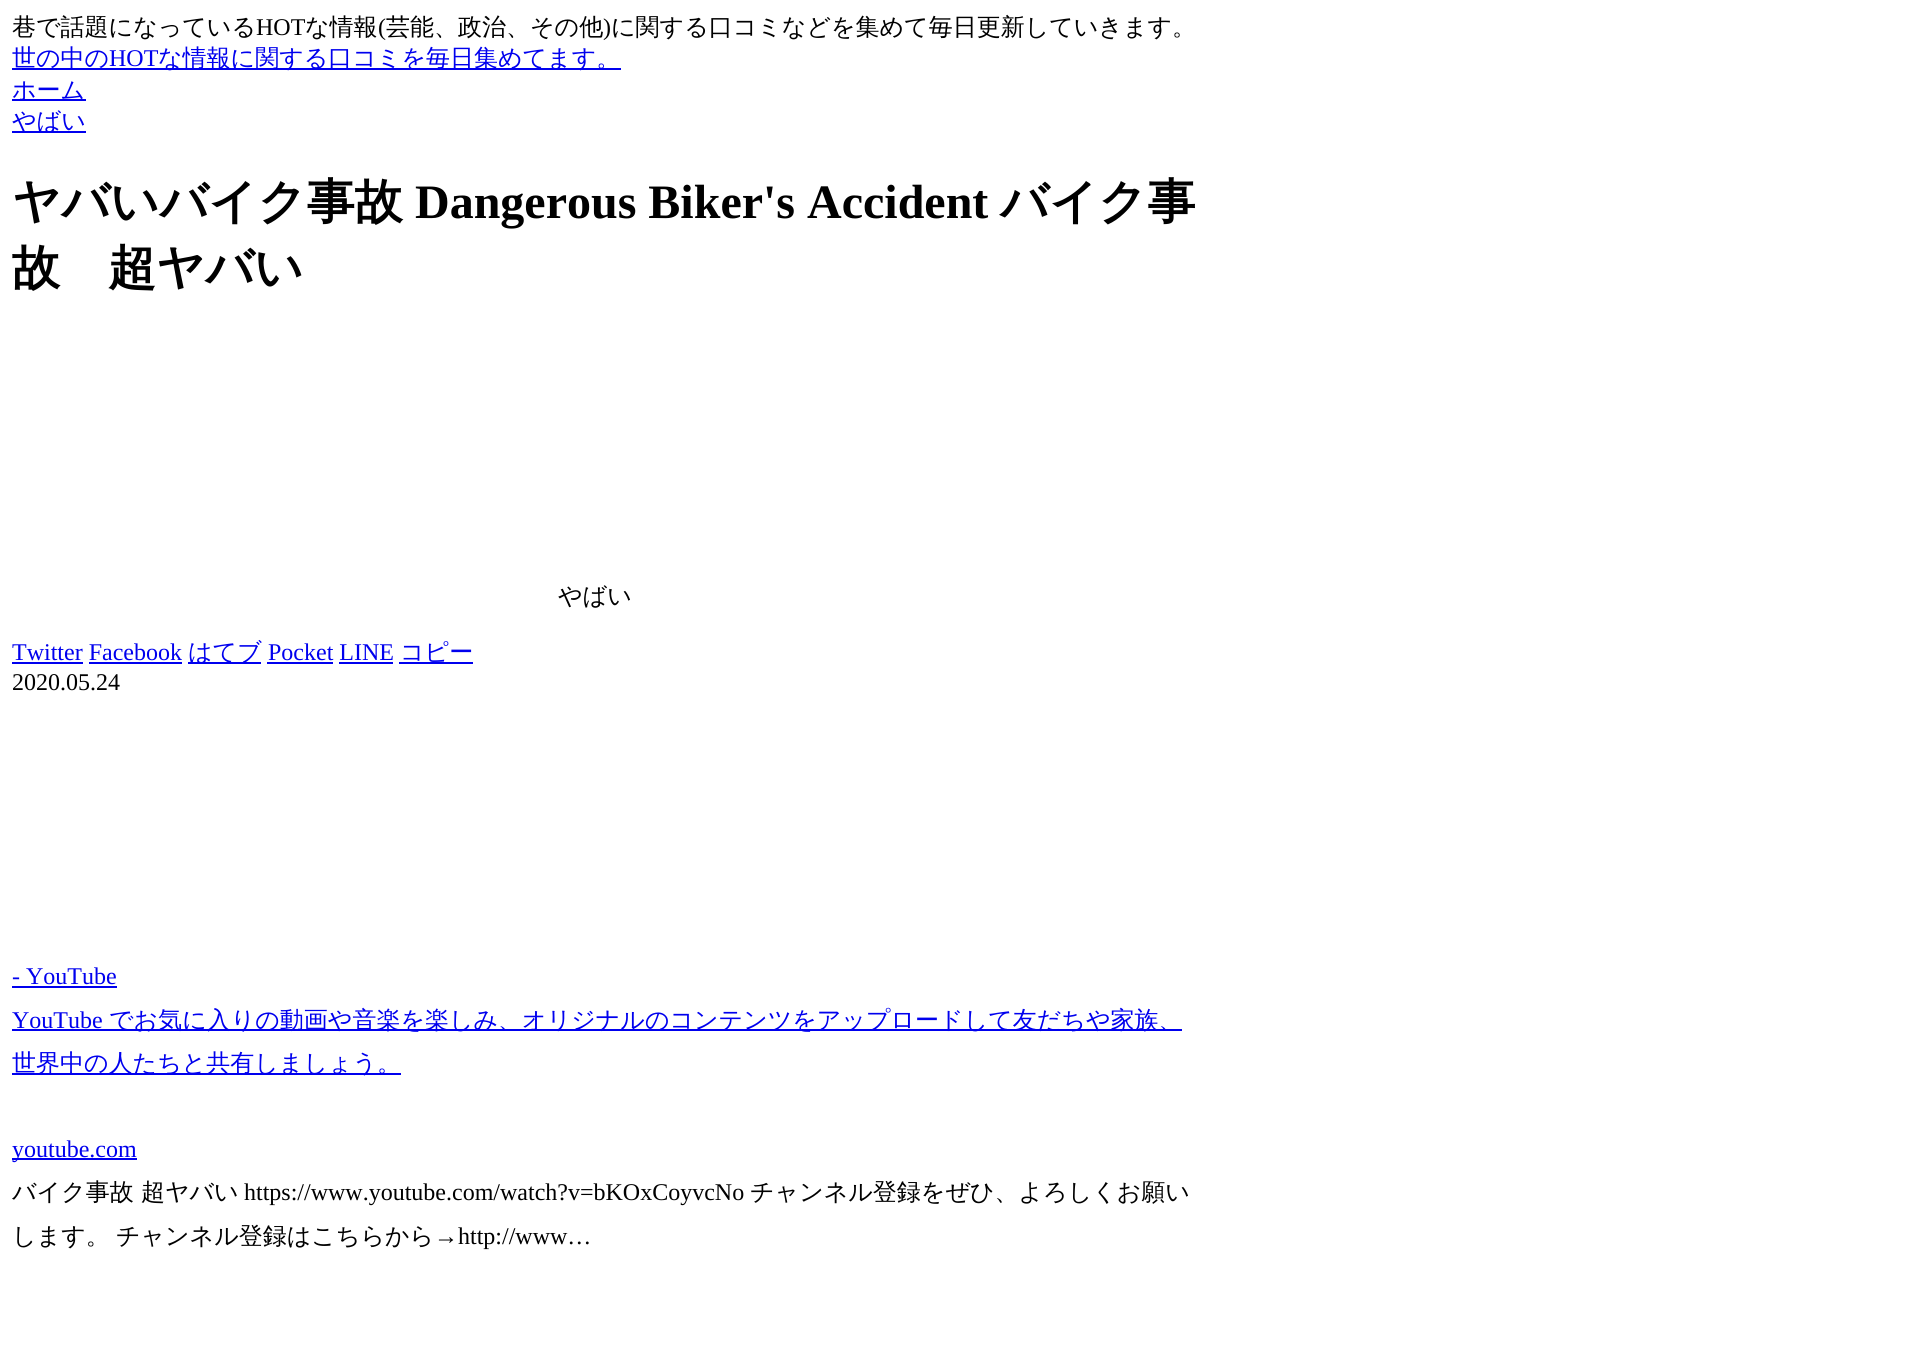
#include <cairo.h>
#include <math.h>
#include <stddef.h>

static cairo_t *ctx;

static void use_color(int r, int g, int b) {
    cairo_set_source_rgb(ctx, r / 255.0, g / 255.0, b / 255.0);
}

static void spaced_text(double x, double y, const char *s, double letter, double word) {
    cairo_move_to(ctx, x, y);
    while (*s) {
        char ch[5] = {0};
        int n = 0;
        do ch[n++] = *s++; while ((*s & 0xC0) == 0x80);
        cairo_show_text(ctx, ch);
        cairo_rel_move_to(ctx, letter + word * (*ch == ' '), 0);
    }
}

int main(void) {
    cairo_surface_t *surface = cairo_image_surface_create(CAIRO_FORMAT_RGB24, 1924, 1348);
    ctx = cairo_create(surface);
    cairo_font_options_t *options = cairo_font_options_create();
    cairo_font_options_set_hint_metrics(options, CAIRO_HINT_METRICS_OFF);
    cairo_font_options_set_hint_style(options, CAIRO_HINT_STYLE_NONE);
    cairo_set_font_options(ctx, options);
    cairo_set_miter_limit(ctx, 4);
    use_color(255, 255, 255);
    cairo_paint(ctx);
    cairo_select_font_face(ctx, "WenQuanYi Zen Hei Medium", CAIRO_FONT_SLANT_NORMAL, CAIRO_FONT_WEIGHT_NORMAL);
    cairo_set_font_size(ctx, 24);
    use_color(0, 0, 0);
    cairo_move_to(ctx, 12, 35);
    cairo_show_text(ctx, "巷で話題になっている");
    cairo_select_font_face(ctx, "Liberation Serif", CAIRO_FONT_SLANT_NORMAL, CAIRO_FONT_WEIGHT_NORMAL);
    cairo_move_to(ctx, 256, 35);
    cairo_show_text(ctx, "HOT");
    cairo_select_font_face(ctx, "WenQuanYi Zen Hei Medium", CAIRO_FONT_SLANT_NORMAL, CAIRO_FONT_WEIGHT_NORMAL);
    cairo_move_to(ctx, 305, 35);
    cairo_show_text(ctx, "な情報");
    cairo_select_font_face(ctx, "Liberation Serif", CAIRO_FONT_SLANT_NORMAL, CAIRO_FONT_WEIGHT_NORMAL);
    cairo_move_to(ctx, 378, 35);
    cairo_show_text(ctx, "(");
    cairo_select_font_face(ctx, "WenQuanYi Zen Hei Medium", CAIRO_FONT_SLANT_NORMAL, CAIRO_FONT_WEIGHT_NORMAL);
    cairo_move_to(ctx, 386, 35);
    cairo_show_text(ctx, "芸能、政治、その他");
    cairo_select_font_face(ctx, "Liberation Serif", CAIRO_FONT_SLANT_NORMAL, CAIRO_FONT_WEIGHT_NORMAL);
    cairo_move_to(ctx, 603, 35);
    cairo_show_text(ctx, ")");
    cairo_select_font_face(ctx, "WenQuanYi Zen Hei Medium", CAIRO_FONT_SLANT_NORMAL, CAIRO_FONT_WEIGHT_NORMAL);
    cairo_move_to(ctx, 611, 35);
    cairo_show_text(ctx, "に関する口コミなどを集めて毎日更新していきます。");
    use_color(0, 0, 238);
    cairo_rectangle(ctx, 12, 68, 609, 2);
    cairo_fill(ctx);
    cairo_move_to(ctx, 12, 66);
    cairo_show_text(ctx, "世の中の");
    cairo_select_font_face(ctx, "Liberation Serif", CAIRO_FONT_SLANT_NORMAL, CAIRO_FONT_WEIGHT_NORMAL);
    cairo_move_to(ctx, 109, 66);
    cairo_show_text(ctx, "HOT");
    cairo_select_font_face(ctx, "WenQuanYi Zen Hei Medium", CAIRO_FONT_SLANT_NORMAL, CAIRO_FONT_WEIGHT_NORMAL);
    cairo_move_to(ctx, 158, 66);
    cairo_show_text(ctx, "な情報に関する口コミを毎日集めてます。");
    cairo_rectangle(ctx, 12, 99, 74, 2);
    cairo_fill(ctx);
    cairo_move_to(ctx, 12, 98);
    cairo_show_text(ctx, "ホーム");
    cairo_rectangle(ctx, 12, 131, 74, 2);
    cairo_fill(ctx);
    cairo_move_to(ctx, 12, 129);
    cairo_show_text(ctx, "やばい");
    cairo_select_font_face(ctx, "WenQuanYi Zen Hei", CAIRO_FONT_SLANT_NORMAL, CAIRO_FONT_WEIGHT_BOLD);
    cairo_set_font_size(ctx, 48);
    use_color(0, 0, 0);
    cairo_move_to(ctx, 12, 218);
    cairo_show_text(ctx, "ヤバいバイク事故");
    cairo_select_font_face(ctx, "Liberation Serif", CAIRO_FONT_SLANT_NORMAL, CAIRO_FONT_WEIGHT_BOLD);
    cairo_move_to(ctx, 415, 218);
    cairo_show_text(ctx, "Dangerous Biker's Accident");
    cairo_select_font_face(ctx, "WenQuanYi Zen Hei", CAIRO_FONT_SLANT_NORMAL, CAIRO_FONT_WEIGHT_BOLD);
    cairo_move_to(ctx, 1000, 218);
    cairo_show_text(ctx, "バイク事");
    cairo_move_to(ctx, 12, 284);
    cairo_show_text(ctx, "故　超ヤバい");
    cairo_select_font_face(ctx, "WenQuanYi Zen Hei Medium", CAIRO_FONT_SLANT_NORMAL, CAIRO_FONT_WEIGHT_NORMAL);
    cairo_set_font_size(ctx, 24);
    cairo_move_to(ctx, 558, 604);
    cairo_show_text(ctx, "やばい");
    cairo_select_font_face(ctx, "Liberation Serif", CAIRO_FONT_SLANT_NORMAL, CAIRO_FONT_WEIGHT_NORMAL);
    use_color(0, 0, 238);
    cairo_move_to(ctx, 12, 660);
    cairo_show_text(ctx, "Twitter Facebook");
    cairo_rectangle(ctx, 12, 662, 71, 2);
    cairo_fill(ctx);
    cairo_rectangle(ctx, 188, 662, 73, 2);
    cairo_fill(ctx);
    cairo_select_font_face(ctx, "WenQuanYi Zen Hei Medium", CAIRO_FONT_SLANT_NORMAL, CAIRO_FONT_WEIGHT_NORMAL);
    cairo_move_to(ctx, 188, 660);
    cairo_show_text(ctx, "はてブ");
    cairo_select_font_face(ctx, "Liberation Serif", CAIRO_FONT_SLANT_NORMAL, CAIRO_FONT_WEIGHT_NORMAL);
    cairo_move_to(ctx, 268, 660);
    cairo_show_text(ctx, "Pocket LINE");
    cairo_rectangle(ctx, 267, 662, 66, 2);
    cairo_fill(ctx);
    cairo_select_font_face(ctx, "WenQuanYi Zen Hei Medium", CAIRO_FONT_SLANT_NORMAL, CAIRO_FONT_WEIGHT_NORMAL);
    cairo_move_to(ctx, 400, 660);
    cairo_show_text(ctx, "コピー");
    cairo_rectangle(ctx, 399, 662, 74, 2);
    cairo_fill(ctx);
    cairo_rectangle(ctx, 89, 662, 93, 2);
    cairo_fill(ctx);
    cairo_rectangle(ctx, 339, 662, 54, 2);
    cairo_fill(ctx);
    cairo_select_font_face(ctx, "Liberation Serif", CAIRO_FONT_SLANT_NORMAL, CAIRO_FONT_WEIGHT_NORMAL);
    use_color(0, 0, 0);
    cairo_move_to(ctx, 12, 690);
    cairo_show_text(ctx, "2020.05.24");
    use_color(0, 0, 238);
    cairo_move_to(ctx, 12, 984);
    cairo_show_text(ctx, "- YouTube");
    cairo_rectangle(ctx, 12, 986, 105, 2);
    cairo_fill(ctx);
    cairo_move_to(ctx, 12, 1028);
    cairo_show_text(ctx, "YouTube");
    cairo_rectangle(ctx, 12, 1029, 1170, 2);
    cairo_fill(ctx);
    cairo_select_font_face(ctx, "WenQuanYi Zen Hei Medium", CAIRO_FONT_SLANT_NORMAL, CAIRO_FONT_WEIGHT_NORMAL);
    cairo_move_to(ctx, 109, 1028);
    cairo_show_text(ctx, "でお気に入りの動画や音楽を楽しみ、オリジナルのコンテンツをアップロードして友だちや家族、");
    cairo_rectangle(ctx, 12, 1073, 389, 2);
    cairo_fill(ctx);
    cairo_move_to(ctx, 12, 1071);
    cairo_show_text(ctx, "世界中の人たちと共有しましょう。");
    cairo_rectangle(ctx, 12, 1158, 125, 2);
    cairo_fill(ctx);
    cairo_select_font_face(ctx, "Liberation Serif", CAIRO_FONT_SLANT_NORMAL, CAIRO_FONT_WEIGHT_NORMAL);
    cairo_move_to(ctx, 12, 1157);
    cairo_show_text(ctx, "youtube.com");
    cairo_select_font_face(ctx, "WenQuanYi Zen Hei Medium", CAIRO_FONT_SLANT_NORMAL, CAIRO_FONT_WEIGHT_NORMAL);
    use_color(0, 0, 0);
    cairo_move_to(ctx, 12, 1200);
    cairo_show_text(ctx, "バイク事故 超ヤバい");
    cairo_select_font_face(ctx, "Liberation Serif", CAIRO_FONT_SLANT_NORMAL, CAIRO_FONT_WEIGHT_NORMAL);
    cairo_move_to(ctx, 244, 1200);
    cairo_show_text(ctx, "https://www.youtube.com/watch?v=bKOxCoyvcNo");
    cairo_select_font_face(ctx, "WenQuanYi Zen Hei Medium", CAIRO_FONT_SLANT_NORMAL, CAIRO_FONT_WEIGHT_NORMAL);
    cairo_move_to(ctx, 750, 1200);
    cairo_show_text(ctx, "チャンネル登録をぜひ、よろしくお願い");
    spaced_text(12, 1244, "します。 チャンネル登録はこちらから", 0, -1);
    cairo_select_font_face(ctx, "Liberation Serif", CAIRO_FONT_SLANT_NORMAL, CAIRO_FONT_WEIGHT_NORMAL);
    cairo_move_to(ctx, 434, 1244);
    cairo_show_text(ctx, "→http://www…");
    cairo_surface_write_to_png(surface, "result.png");
    cairo_font_options_destroy(options);
    cairo_destroy(ctx);
    cairo_surface_destroy(surface);
    return 0;
}
